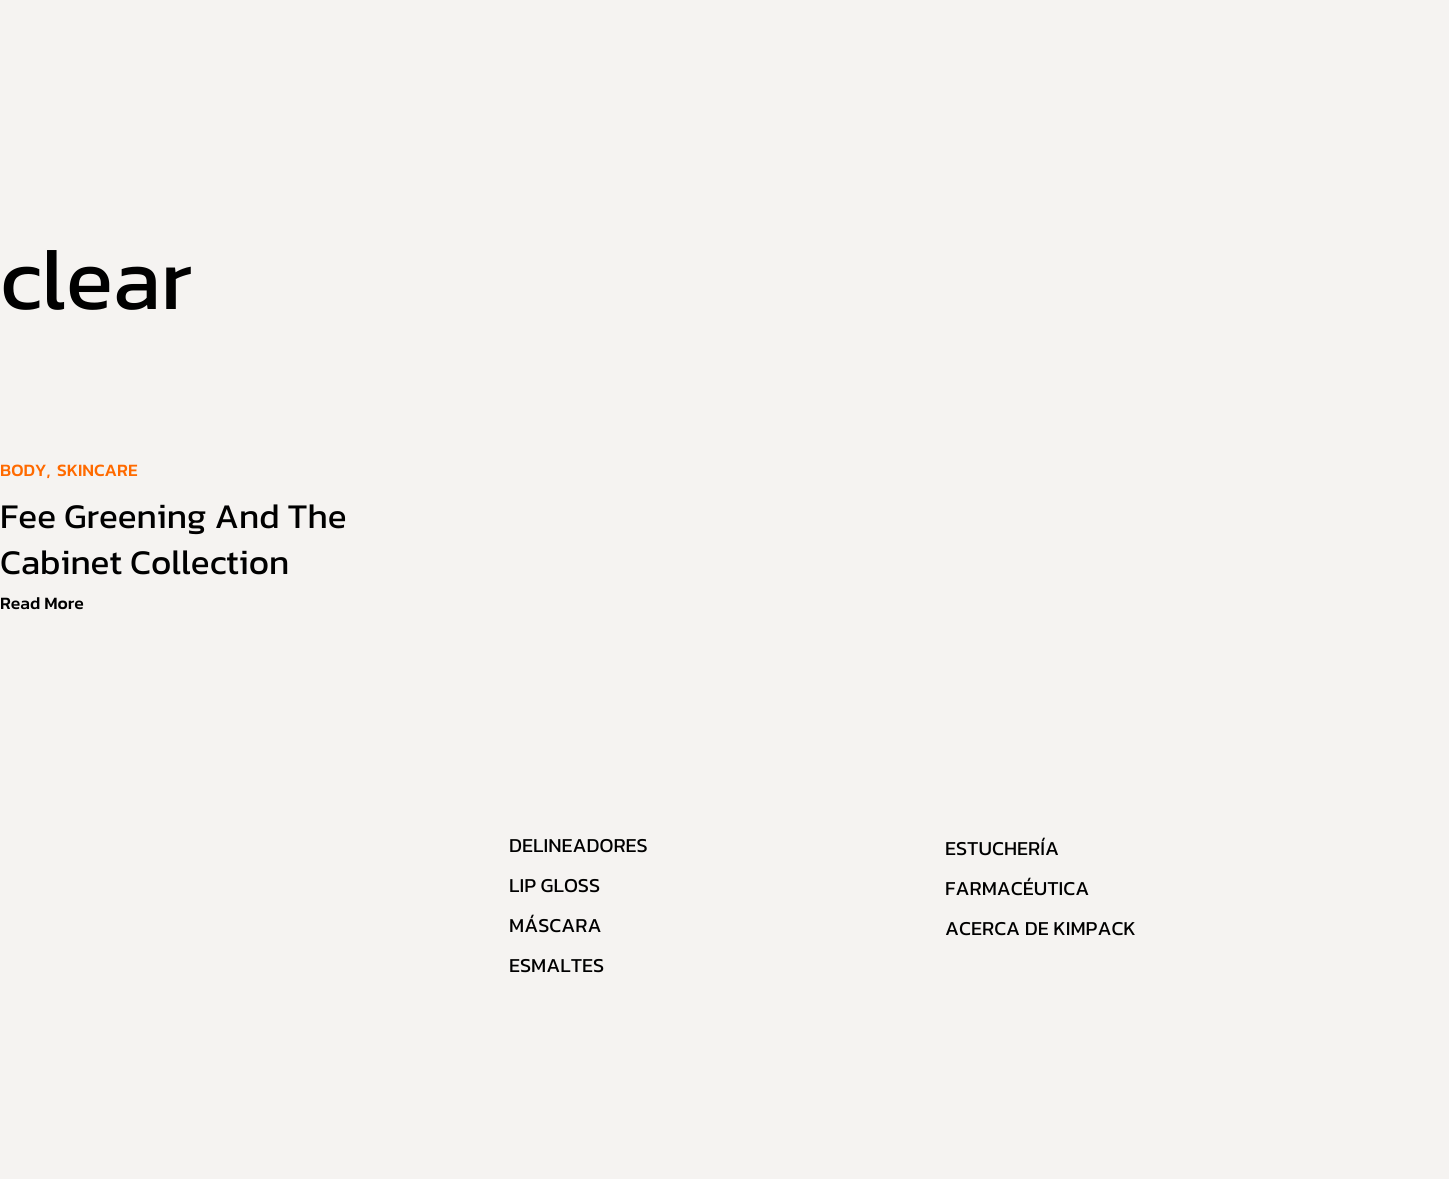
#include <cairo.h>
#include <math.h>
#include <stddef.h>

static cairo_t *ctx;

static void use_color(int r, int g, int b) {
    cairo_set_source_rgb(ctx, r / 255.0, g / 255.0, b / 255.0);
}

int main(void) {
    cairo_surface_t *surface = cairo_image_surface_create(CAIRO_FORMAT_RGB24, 1449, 1179);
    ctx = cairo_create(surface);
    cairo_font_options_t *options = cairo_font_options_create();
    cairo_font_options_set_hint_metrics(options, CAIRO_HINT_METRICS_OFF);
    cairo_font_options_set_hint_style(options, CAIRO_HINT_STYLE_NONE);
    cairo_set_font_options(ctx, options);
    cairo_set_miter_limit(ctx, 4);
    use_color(245, 243, 241);
    cairo_paint(ctx);
    cairo_select_font_face(ctx, "Kanit", CAIRO_FONT_SLANT_NORMAL, CAIRO_FONT_WEIGHT_NORMAL);
    cairo_set_font_size(ctx, 87.5);
    use_color(0, 0, 0);
    cairo_move_to(ctx, 0, 309);
    cairo_show_text(ctx, "clear");
    cairo_select_font_face(ctx, "Kanit Medium", CAIRO_FONT_SLANT_NORMAL, CAIRO_FONT_WEIGHT_NORMAL);
    cairo_set_font_size(ctx, 17.5);
    use_color(255, 106, 0);
    cairo_move_to(ctx, 0, 476);
    cairo_show_text(ctx, "BODY,");
    cairo_move_to(ctx, 57, 476);
    cairo_show_text(ctx, "SKINCARE");
    cairo_select_font_face(ctx, "Kanit", CAIRO_FONT_SLANT_NORMAL, CAIRO_FONT_WEIGHT_NORMAL);
    cairo_set_font_size(ctx, 35);
    use_color(0, 0, 0);
    cairo_move_to(ctx, 0, 528);
    cairo_show_text(ctx, "Fee Greening And The");
    cairo_move_to(ctx, 0, 574);
    cairo_show_text(ctx, "Cabinet Collection");
    cairo_select_font_face(ctx, "Kanit Medium", CAIRO_FONT_SLANT_NORMAL, CAIRO_FONT_WEIGHT_NORMAL);
    cairo_set_font_size(ctx, 17.5);
    cairo_move_to(ctx, 0, 609);
    cairo_show_text(ctx, "Read More");
    cairo_select_font_face(ctx, "Kanit", CAIRO_FONT_SLANT_NORMAL, CAIRO_FONT_WEIGHT_NORMAL);
    cairo_set_font_size(ctx, 20);
    cairo_move_to(ctx, 509, 852);
    cairo_show_text(ctx, "DELINEADORES");
    cairo_move_to(ctx, 509, 892);
    cairo_show_text(ctx, "LIP GLOSS");
    cairo_move_to(ctx, 509, 932);
    cairo_show_text(ctx, "MÁSCARA");
    cairo_move_to(ctx, 509, 972);
    cairo_show_text(ctx, "ESMALTES");
    cairo_move_to(ctx, 945, 855);
    cairo_show_text(ctx, "ESTUCHERÍA");
    cairo_move_to(ctx, 945, 895);
    cairo_show_text(ctx, "FARMACÉUTICA");
    cairo_move_to(ctx, 945, 935);
    cairo_show_text(ctx, "ACERCA DE KIMPACK");
    cairo_surface_write_to_png(surface, "result.png");
    cairo_font_options_destroy(options);
    cairo_destroy(ctx);
    cairo_surface_destroy(surface);
    return 0;
}
